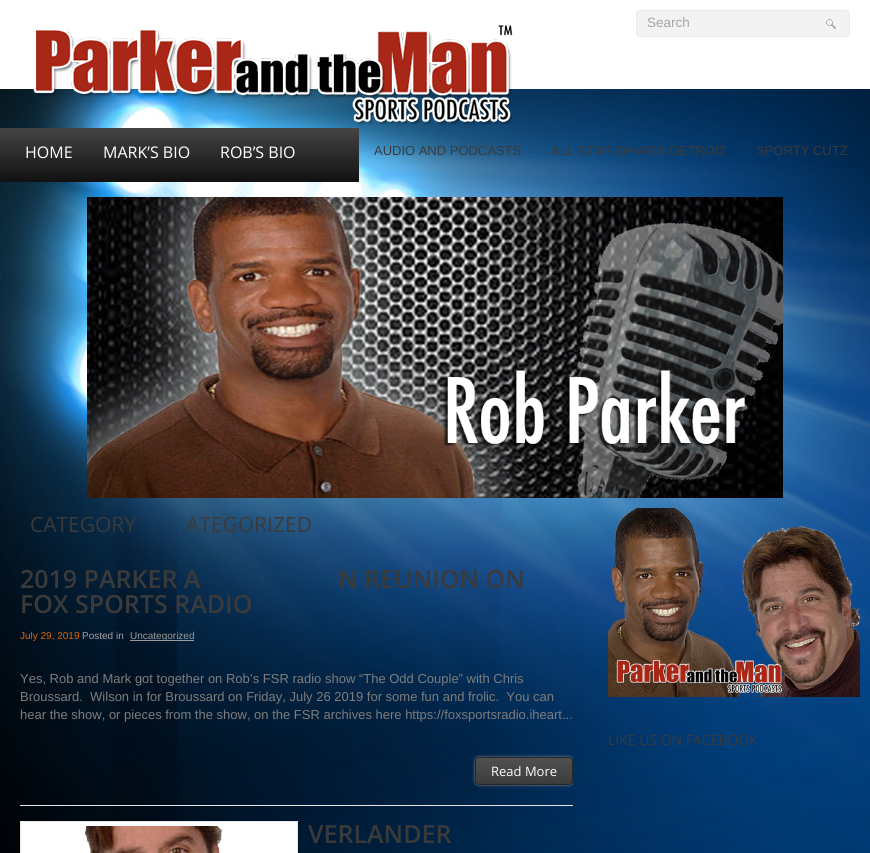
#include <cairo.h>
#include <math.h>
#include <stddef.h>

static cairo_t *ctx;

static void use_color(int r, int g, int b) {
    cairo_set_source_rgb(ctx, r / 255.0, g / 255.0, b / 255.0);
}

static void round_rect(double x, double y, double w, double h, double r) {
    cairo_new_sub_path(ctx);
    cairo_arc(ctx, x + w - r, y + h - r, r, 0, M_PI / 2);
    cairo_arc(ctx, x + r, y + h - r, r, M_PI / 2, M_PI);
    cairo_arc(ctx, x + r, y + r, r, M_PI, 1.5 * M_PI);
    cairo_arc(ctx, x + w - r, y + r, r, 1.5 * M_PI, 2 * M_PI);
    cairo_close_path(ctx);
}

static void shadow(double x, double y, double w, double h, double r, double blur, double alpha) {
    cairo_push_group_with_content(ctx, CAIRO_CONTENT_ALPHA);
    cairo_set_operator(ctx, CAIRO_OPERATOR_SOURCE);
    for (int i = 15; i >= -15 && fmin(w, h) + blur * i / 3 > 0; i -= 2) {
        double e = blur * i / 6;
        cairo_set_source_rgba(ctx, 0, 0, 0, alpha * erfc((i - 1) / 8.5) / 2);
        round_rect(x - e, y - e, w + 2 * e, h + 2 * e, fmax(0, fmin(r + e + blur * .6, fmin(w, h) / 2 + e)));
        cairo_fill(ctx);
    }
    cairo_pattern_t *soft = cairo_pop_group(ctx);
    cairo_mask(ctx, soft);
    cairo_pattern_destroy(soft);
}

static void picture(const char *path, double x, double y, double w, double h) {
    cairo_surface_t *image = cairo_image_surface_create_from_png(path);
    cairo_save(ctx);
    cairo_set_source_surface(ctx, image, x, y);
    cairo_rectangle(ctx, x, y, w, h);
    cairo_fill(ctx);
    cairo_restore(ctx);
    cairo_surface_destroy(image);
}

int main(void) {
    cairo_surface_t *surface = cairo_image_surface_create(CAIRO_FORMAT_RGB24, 870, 853);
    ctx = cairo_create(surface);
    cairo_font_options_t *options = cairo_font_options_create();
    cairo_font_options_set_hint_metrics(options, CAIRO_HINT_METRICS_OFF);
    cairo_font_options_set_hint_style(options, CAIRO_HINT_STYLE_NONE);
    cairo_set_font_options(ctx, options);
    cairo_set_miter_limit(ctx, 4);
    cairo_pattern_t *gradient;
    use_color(255, 255, 255);
    cairo_paint(ctx);
    picture("img1.png", 0, 89, 870, 764);
    gradient = cairo_pattern_create_linear(180, 128, 180, 182);
    cairo_pattern_add_color_stop_rgba(gradient, 0.01, 0.263, 0.263, 0.263, 1);
    cairo_pattern_add_color_stop_rgba(gradient, 1, 0.067, 0.067, 0.067, 1);
    cairo_set_source(ctx, gradient);
    cairo_pattern_destroy(gradient);
    cairo_rectangle(ctx, 0, 128, 359, 54);
    cairo_fill(ctx);
    cairo_select_font_face(ctx, "Open Sans", CAIRO_FONT_SLANT_NORMAL, CAIRO_FONT_WEIGHT_NORMAL);
    cairo_set_font_size(ctx, 16);
    use_color(255, 255, 255);
    cairo_move_to(ctx, 25, 158);
    cairo_show_text(ctx, "HOME");
    cairo_move_to(ctx, 103, 158);
    cairo_show_text(ctx, "MARK’S BIO");
    cairo_move_to(ctx, 220, 158);
    cairo_show_text(ctx, "ROB’S BIO");
    picture("img2.png", 87, 197, 696, 301);
    use_color(243, 243, 243);
    round_rect(636.5, 10.5, 213, 26, 3.5);
    cairo_fill_preserve(ctx);
    use_color(234, 234, 234);
    cairo_set_line_width(ctx, 1);
    cairo_stroke(ctx);
    cairo_select_font_face(ctx, "Liberation Sans", CAIRO_FONT_SLANT_NORMAL, CAIRO_FONT_WEIGHT_NORMAL);
    cairo_set_font_size(ctx, 13.5);
    use_color(163, 163, 163);
    cairo_move_to(ctx, 647, 27);
    cairo_show_text(ctx, "Search");
    picture("img3.png", 826, 19, 10, 10);
    picture("img4.png", 33, 25, 480, 100);
    cairo_select_font_face(ctx, "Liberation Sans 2", CAIRO_FONT_SLANT_NORMAL, CAIRO_FONT_WEIGHT_NORMAL);
    cairo_set_font_size(ctx, 13);
    use_color(58, 58, 58);
    cairo_move_to(ctx, 374, 155);
    cairo_show_text(ctx, "AUDIO AND PODCASTS");
    cairo_move_to(ctx, 551, 155);
    cairo_show_text(ctx, "ALL-STAR DAWGS DETROIT");
    cairo_move_to(ctx, 756, 155);
    cairo_show_text(ctx, "SPORTY CUTZ");
    cairo_select_font_face(ctx, "Open Sans", CAIRO_FONT_SLANT_NORMAL, CAIRO_FONT_WEIGHT_NORMAL);
    cairo_set_font_size(ctx, 21);
    cairo_move_to(ctx, 30, 532);
    cairo_show_text(ctx, "CATEGORY");
    cairo_move_to(ctx, 186, 532);
    cairo_show_text(ctx, "ATEGORIZED");
    use_color(229, 229, 229);
    cairo_rectangle(ctx, 20, 805, 553, 1);
    cairo_fill(ctx);
    cairo_select_font_face(ctx, "Open Sans SemiBold", CAIRO_FONT_SLANT_NORMAL, CAIRO_FONT_WEIGHT_NORMAL);
    cairo_set_font_size(ctx, 25);
    use_color(58, 58, 58);
    cairo_move_to(ctx, 20, 588);
    cairo_show_text(ctx, "2019 PARKER A");
    cairo_move_to(ctx, 338, 588);
    cairo_show_text(ctx, "N REUNION ON");
    cairo_move_to(ctx, 20, 613);
    cairo_show_text(ctx, "FOX SPORTS RADIO");
    cairo_select_font_face(ctx, "Liberation Sans", CAIRO_FONT_SLANT_NORMAL, CAIRO_FONT_WEIGHT_NORMAL);
    cairo_set_font_size(ctx, 10);
    use_color(221, 98, 0);
    cairo_move_to(ctx, 20, 639);
    cairo_show_text(ctx, "July 29, 2019");
    use_color(163, 163, 163);
    cairo_move_to(ctx, 82, 639);
    cairo_show_text(ctx, "Posted in");
    use_color(155, 155, 155);
    cairo_rectangle(ctx, 130, 640, 64, 1);
    cairo_fill(ctx);
    cairo_move_to(ctx, 130, 639);
    cairo_show_text(ctx, "Uncategorized");
    cairo_set_font_size(ctx, 13);
    use_color(125, 125, 125);
    cairo_move_to(ctx, 20, 683);
    cairo_show_text(ctx, "Yes, Rob and Mark got together on Rob’s FSR radio show “The Odd Couple” with Chris");
    cairo_move_to(ctx, 20, 701);
    cairo_show_text(ctx, "Broussard.  Wilson in for Broussard on Friday, July 26 2019 for some fun and frolic.  You can");
    cairo_move_to(ctx, 20, 719);
    cairo_show_text(ctx, "hear the show, or pieces from the show, on the FSR archives here https://foxsportsradio.iheart...");
    cairo_save(ctx);
    cairo_rectangle(ctx, 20, 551, 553, 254);
    cairo_clip(ctx);
    use_color(133, 133, 133);
    shadow(475, 757, 98, 28, 4, 1.5, 1);
    cairo_restore(ctx);
    cairo_save(ctx);
    round_rect(475, 757, 98, 28, 4);
    cairo_clip(ctx);
    gradient = cairo_pattern_create_linear(524, 758, 524, 784);
    cairo_pattern_add_color_stop_rgba(gradient, 0, 0.314, 0.314, 0.314, 1);
    cairo_pattern_add_color_stop_rgba(gradient, 1, 0.235, 0.235, 0.235, 1);
    cairo_set_source(ctx, gradient);
    cairo_pattern_destroy(gradient);
    cairo_rectangle(ctx, 475, 758, 98, 26);
    cairo_fill(ctx);
    cairo_restore(ctx);
    round_rect(475.5, 757.5, 97, 27, 3.5);
    use_color(40, 40, 40);
    cairo_stroke(ctx);
    cairo_select_font_face(ctx, "Open Sans", CAIRO_FONT_SLANT_NORMAL, CAIRO_FONT_WEIGHT_NORMAL);
    use_color(255, 255, 255);
    cairo_move_to(ctx, 491, 776);
    cairo_show_text(ctx, "Read More");
    cairo_rectangle(ctx, 20.5, 821.5, 277, 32);
    cairo_fill_preserve(ctx);
    use_color(233, 233, 233);
    cairo_stroke(ctx);
    picture("img5.png", 85, 826, 137, 27);
    cairo_select_font_face(ctx, "Open Sans SemiBold", CAIRO_FONT_SLANT_NORMAL, CAIRO_FONT_WEIGHT_NORMAL);
    cairo_set_font_size(ctx, 25);
    use_color(58, 58, 58);
    cairo_move_to(ctx, 308, 843);
    cairo_show_text(ctx, "VERLANDER");
    picture("img6.png", 608, 508, 252, 189);
    cairo_select_font_face(ctx, "Open Sans", CAIRO_FONT_SLANT_NORMAL, CAIRO_FONT_WEIGHT_NORMAL);
    cairo_set_font_size(ctx, 14);
    cairo_move_to(ctx, 608, 745);
    cairo_show_text(ctx, "LIKE US ON FACEBOOK");
    cairo_surface_write_to_png(surface, "result.png");
    cairo_font_options_destroy(options);
    cairo_destroy(ctx);
    cairo_surface_destroy(surface);
    return 0;
}
